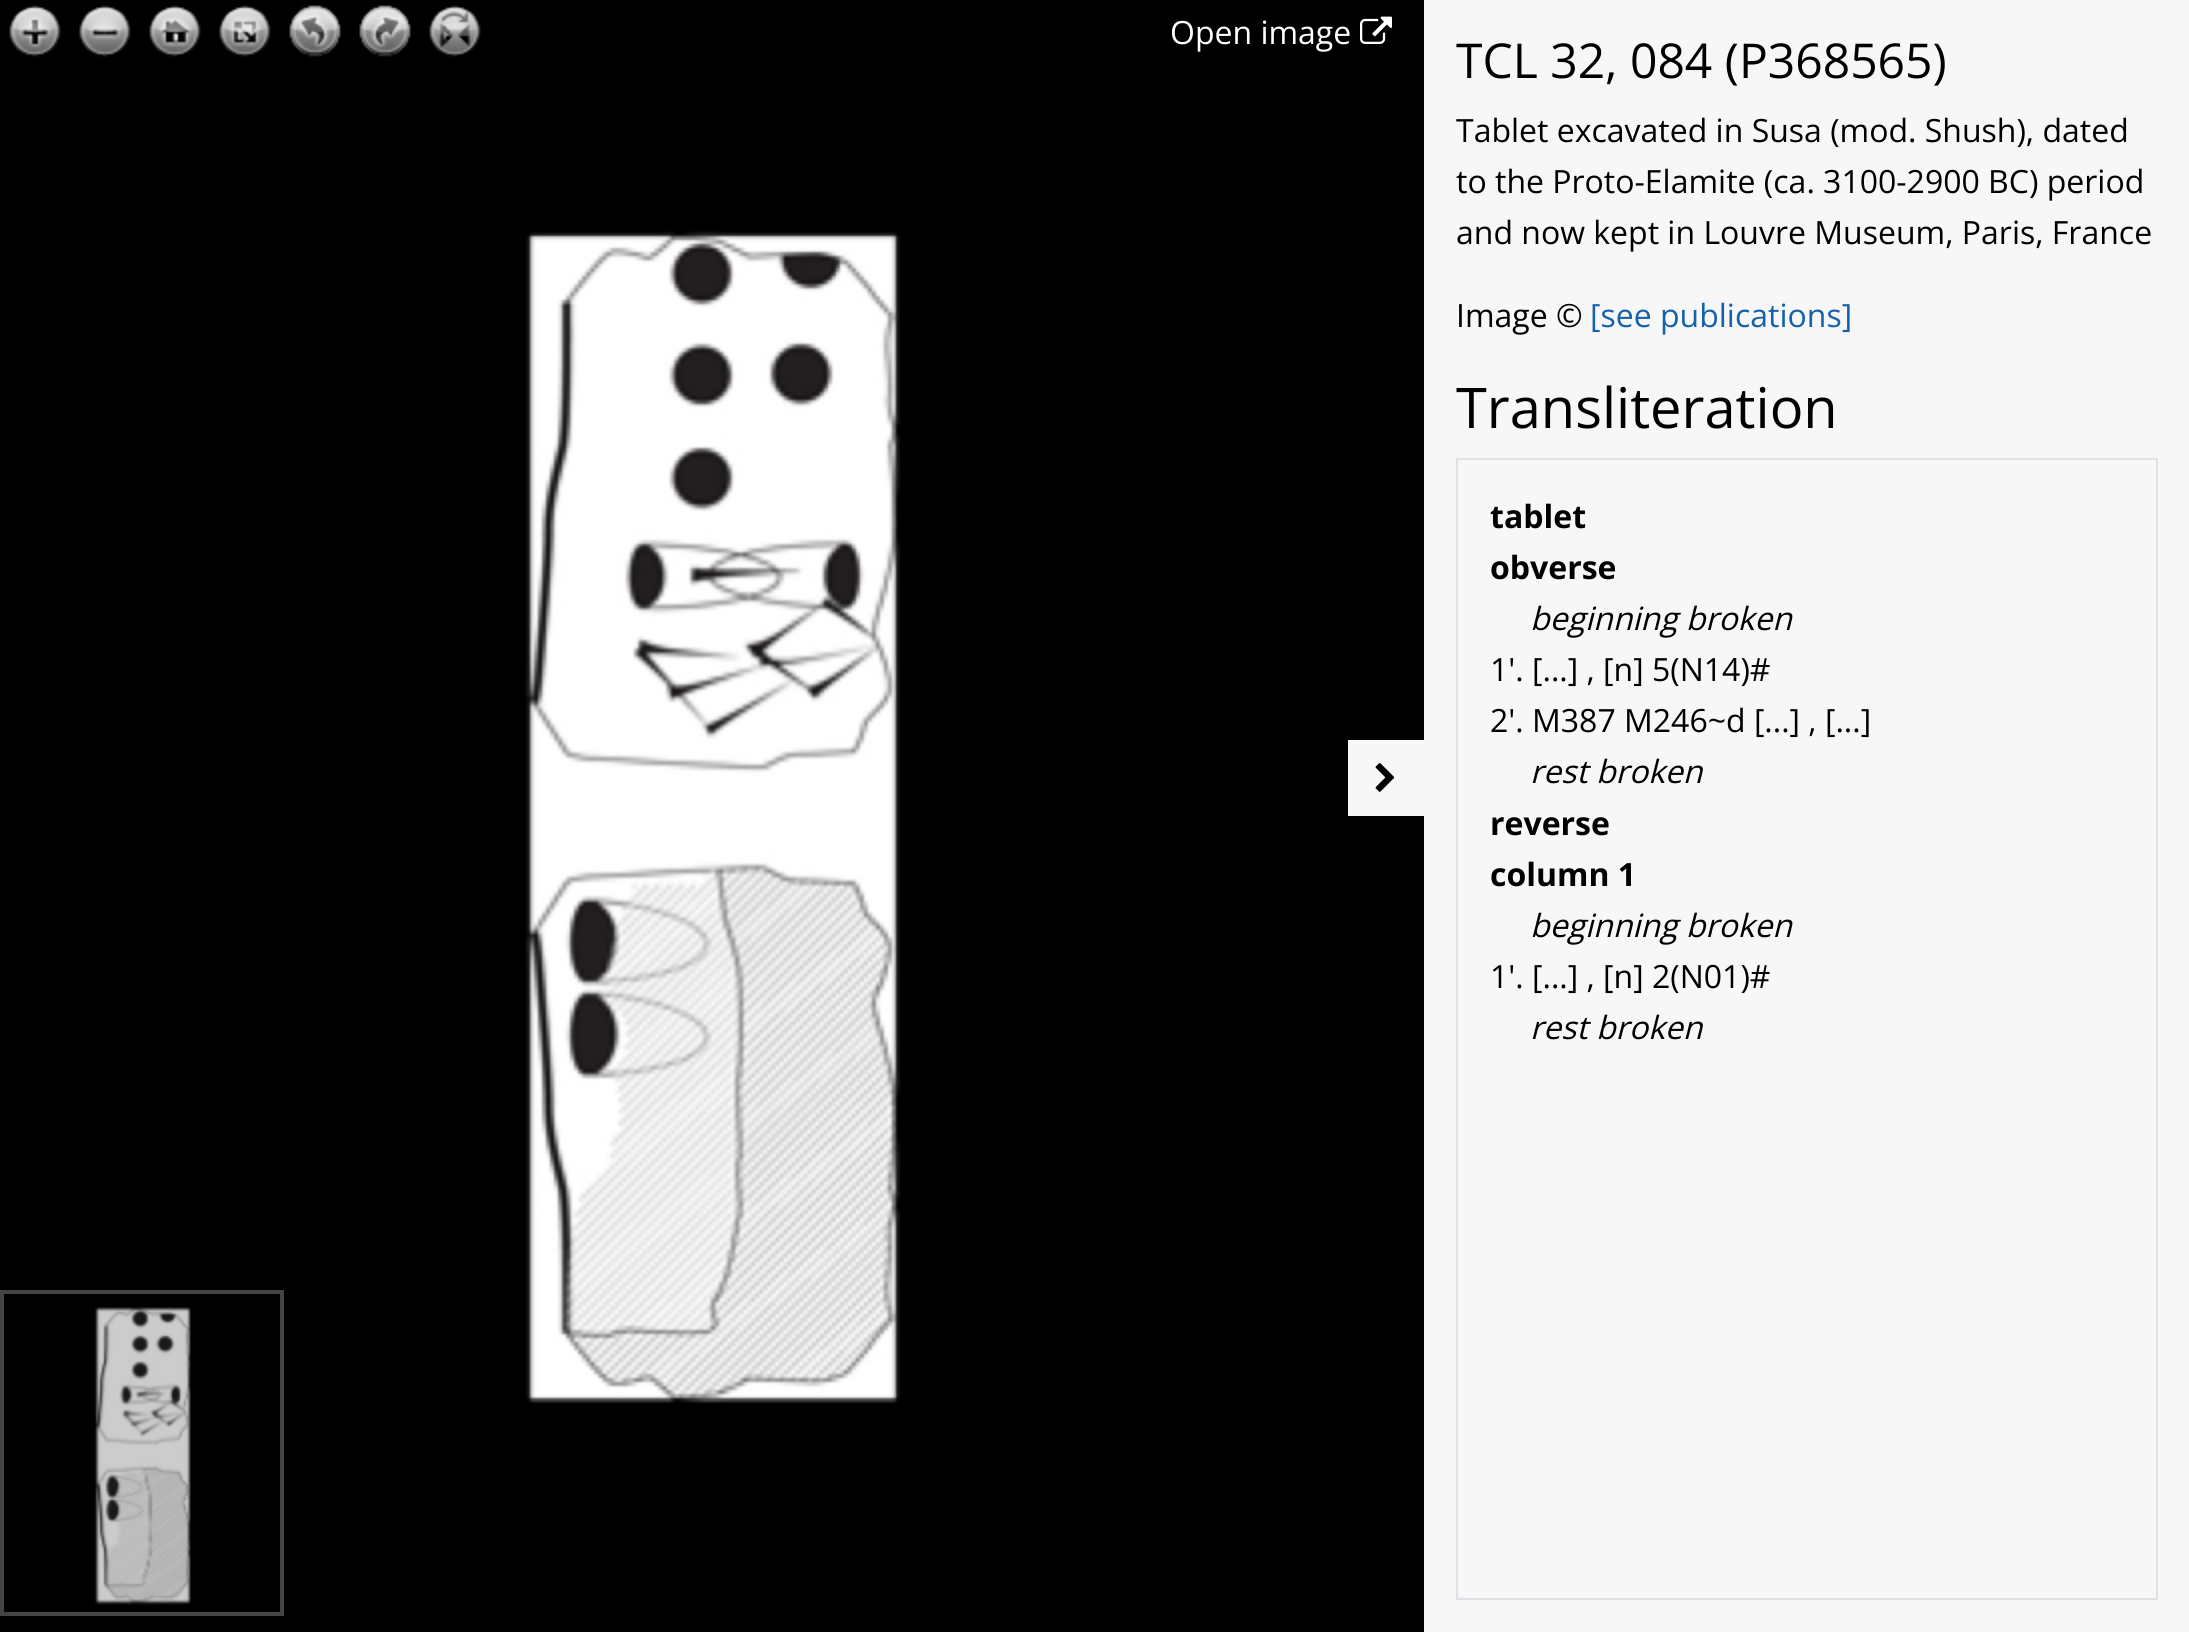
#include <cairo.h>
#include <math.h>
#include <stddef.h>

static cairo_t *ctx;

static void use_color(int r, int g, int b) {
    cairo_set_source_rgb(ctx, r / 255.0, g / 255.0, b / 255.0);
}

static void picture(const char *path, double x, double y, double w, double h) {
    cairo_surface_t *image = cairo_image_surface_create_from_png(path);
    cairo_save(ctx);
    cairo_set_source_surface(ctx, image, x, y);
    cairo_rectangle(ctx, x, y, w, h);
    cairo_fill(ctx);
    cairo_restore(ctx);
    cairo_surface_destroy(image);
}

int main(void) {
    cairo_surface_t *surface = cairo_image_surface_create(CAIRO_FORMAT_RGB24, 2189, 1632);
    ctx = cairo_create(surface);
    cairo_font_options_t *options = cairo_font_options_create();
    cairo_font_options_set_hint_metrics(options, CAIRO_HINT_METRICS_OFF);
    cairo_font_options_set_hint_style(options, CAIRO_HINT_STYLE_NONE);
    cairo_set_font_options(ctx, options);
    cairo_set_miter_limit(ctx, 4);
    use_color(247, 247, 247);
    cairo_paint(ctx);
    use_color(0, 0, 0);
    cairo_rectangle(ctx, 0, 0, 1424, 1632);
    cairo_fill(ctx);
    picture("img1.png", 9, 5, 52, 52);
    picture("img2.png", 9, 5, 52, 52);
    picture("img3.png", 79, 5, 52, 52);
    picture("img4.png", 79, 5, 52, 52);
    picture("img5.png", 149, 5, 52, 52);
    picture("img6.png", 149, 5, 52, 52);
    picture("img7.png", 219, 5, 52, 52);
    picture("img8.png", 219, 5, 52, 52);
    picture("img9.png", 289, 5, 52, 52);
    picture("img10.png", 289, 5, 52, 52);
    picture("img11.png", 359, 5, 52, 52);
    picture("img12.png", 359, 5, 52, 52);
    picture("img13.png", 429, 5, 52, 52);
    picture("img14.png", 429, 5, 52, 52);
    cairo_select_font_face(ctx, "Open Sans", CAIRO_FONT_SLANT_NORMAL, CAIRO_FONT_WEIGHT_NORMAL);
    cairo_set_font_size(ctx, 32);
    use_color(255, 255, 255);
    cairo_move_to(ctx, 1170, 44);
    cairo_show_text(ctx, "Open image");
    picture("img15.png", 1360, 16, 32, 28);
    picture("img16.png", 525, 231, 376, 1173);
    cairo_rectangle(ctx, 2, 1292, 280, 322);
    use_color(68, 68, 68);
    cairo_set_line_width(ctx, 4);
    cairo_stroke(ctx);
    picture("img17.png", 95, 1307, 96, 298);
    use_color(247, 247, 247);
    cairo_rectangle(ctx, 1348, 740, 76, 76);
    cairo_fill(ctx);
    picture("img18.png", 1375, 763, 20, 29);
    cairo_set_font_size(ctx, 48);
    use_color(0, 0, 0);
    cairo_move_to(ctx, 1456, 78);
    cairo_show_text(ctx, "TCL 32, 084 (P368565)");
    cairo_set_font_size(ctx, 32);
    cairo_move_to(ctx, 1456, 142);
    cairo_show_text(ctx, "Tablet excavated in Susa (mod. Shush), dated");
    cairo_move_to(ctx, 1456, 193);
    cairo_show_text(ctx, "to the Proto-Elamite (ca. 3100-2900 BC) period");
    cairo_move_to(ctx, 1456, 244);
    cairo_show_text(ctx, "and now kept in Louvre Museum, Paris, France");
    cairo_move_to(ctx, 1456, 327);
    cairo_show_text(ctx, "Image ©");
    use_color(22, 97, 171);
    cairo_move_to(ctx, 1590, 327);
    cairo_show_text(ctx, "[see publications]");
    cairo_set_font_size(ctx, 56);
    use_color(0, 0, 0);
    cairo_move_to(ctx, 1456, 428);
    cairo_show_text(ctx, "Transliteration");
    cairo_rectangle(ctx, 1457, 459, 700, 1140);
    use_color(222, 226, 230);
    cairo_set_line_width(ctx, 2);
    cairo_stroke(ctx);
    cairo_select_font_face(ctx, "Open Sans", CAIRO_FONT_SLANT_NORMAL, CAIRO_FONT_WEIGHT_BOLD);
    cairo_set_font_size(ctx, 32);
    use_color(0, 0, 0);
    cairo_move_to(ctx, 1490, 528);
    cairo_show_text(ctx, "tablet");
    cairo_move_to(ctx, 1490, 579);
    cairo_show_text(ctx, "obverse");
    cairo_select_font_face(ctx, "Open Sans", CAIRO_FONT_SLANT_ITALIC, CAIRO_FONT_WEIGHT_NORMAL);
    cairo_move_to(ctx, 1530, 630);
    cairo_show_text(ctx, "beginning broken");
    cairo_select_font_face(ctx, "Open Sans", CAIRO_FONT_SLANT_NORMAL, CAIRO_FONT_WEIGHT_NORMAL);
    cairo_move_to(ctx, 1490, 681);
    cairo_show_text(ctx, "1'. [...] , [n] 5(N14)#");
    cairo_move_to(ctx, 1490, 732);
    cairo_show_text(ctx, "2'. M387 M246~d [...] , [...]");
    cairo_select_font_face(ctx, "Open Sans", CAIRO_FONT_SLANT_ITALIC, CAIRO_FONT_WEIGHT_NORMAL);
    cairo_move_to(ctx, 1530, 783);
    cairo_show_text(ctx, "rest broken");
    cairo_select_font_face(ctx, "Open Sans", CAIRO_FONT_SLANT_NORMAL, CAIRO_FONT_WEIGHT_BOLD);
    cairo_move_to(ctx, 1490, 835);
    cairo_show_text(ctx, "reverse");
    cairo_move_to(ctx, 1490, 886);
    cairo_show_text(ctx, "column 1");
    cairo_select_font_face(ctx, "Open Sans", CAIRO_FONT_SLANT_ITALIC, CAIRO_FONT_WEIGHT_NORMAL);
    cairo_move_to(ctx, 1530, 937);
    cairo_show_text(ctx, "beginning broken");
    cairo_select_font_face(ctx, "Open Sans", CAIRO_FONT_SLANT_NORMAL, CAIRO_FONT_WEIGHT_NORMAL);
    cairo_move_to(ctx, 1490, 988);
    cairo_show_text(ctx, "1'. [...] , [n] 2(N01)#");
    cairo_select_font_face(ctx, "Open Sans", CAIRO_FONT_SLANT_ITALIC, CAIRO_FONT_WEIGHT_NORMAL);
    cairo_move_to(ctx, 1530, 1039);
    cairo_show_text(ctx, "rest broken");
    cairo_surface_write_to_png(surface, "result.png");
    cairo_font_options_destroy(options);
    cairo_destroy(ctx);
    cairo_surface_destroy(surface);
    return 0;
}
